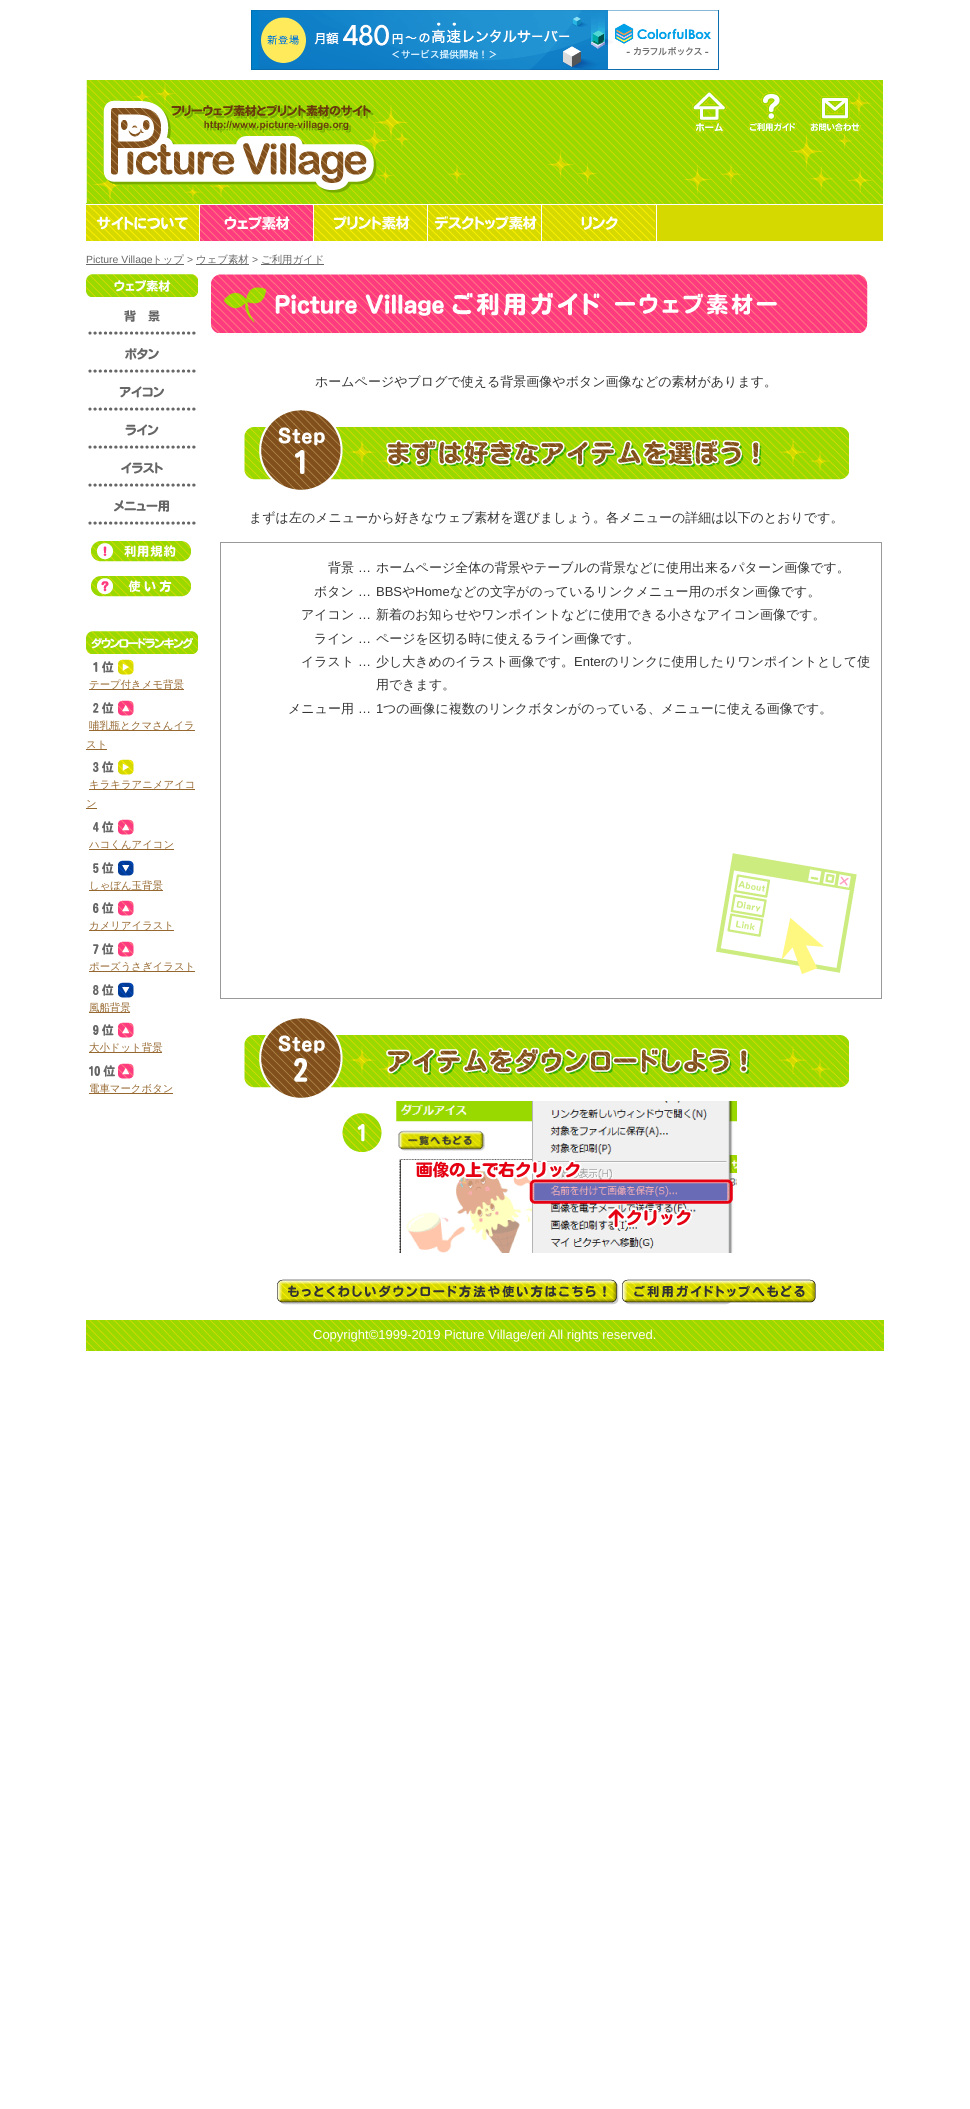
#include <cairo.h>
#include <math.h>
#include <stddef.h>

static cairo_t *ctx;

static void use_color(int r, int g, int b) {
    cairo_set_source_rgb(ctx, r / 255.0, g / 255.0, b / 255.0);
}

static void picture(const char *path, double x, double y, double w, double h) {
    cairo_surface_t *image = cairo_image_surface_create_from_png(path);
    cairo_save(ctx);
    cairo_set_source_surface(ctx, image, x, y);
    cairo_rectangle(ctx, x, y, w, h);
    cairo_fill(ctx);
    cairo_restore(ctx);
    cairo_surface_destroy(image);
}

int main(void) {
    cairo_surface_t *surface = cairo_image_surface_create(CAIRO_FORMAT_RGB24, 970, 2109);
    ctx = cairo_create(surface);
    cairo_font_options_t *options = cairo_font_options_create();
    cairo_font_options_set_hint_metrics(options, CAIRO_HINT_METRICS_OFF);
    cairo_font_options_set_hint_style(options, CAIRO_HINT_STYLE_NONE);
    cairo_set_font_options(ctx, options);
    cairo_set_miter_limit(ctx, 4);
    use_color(255, 255, 255);
    cairo_paint(ctx);
    picture("img1.png", 251, 10, 468, 60);
    picture("img2.png", 86, 80, 797, 124);
    picture("img3.png", 86, 80, 291, 123);
    picture("img4.png", 692, 91, 35, 42);
    picture("img5.png", 748, 92, 49, 40);
    picture("img6.png", 809, 96, 52, 36);
    use_color(214, 217, 0);
    cairo_rectangle(ctx, 655, 205, 228, 36);
    cairo_fill(ctx);
    picture("img7.png", 199, 205, 1, 36);
    picture("img8.png", 86, 205, 113, 36);
    picture("img9.png", 200, 205, 114, 36);
    picture("img7.png", 427, 205, 1, 36);
    picture("img10.png", 314, 205, 113, 36);
    picture("img7.png", 541, 205, 1, 36);
    picture("img11.png", 428, 205, 113, 36);
    use_color(255, 255, 255);
    cairo_rectangle(ctx, 656, 205, 1, 36);
    cairo_fill(ctx);
    picture("img12.png", 542, 205, 113, 36);
    use_color(102, 102, 102);
    cairo_rectangle(ctx, 86, 264, 98, 1);
    cairo_fill(ctx);
    cairo_select_font_face(ctx, "Liberation Sans", CAIRO_FONT_SLANT_NORMAL, CAIRO_FONT_WEIGHT_NORMAL);
    cairo_set_font_size(ctx, 10.4);
    cairo_move_to(ctx, 86, 263);
    cairo_show_text(ctx, "Picture Village");
    cairo_select_font_face(ctx, "WenQuanYi Zen Hei Medium", CAIRO_FONT_SLANT_NORMAL, CAIRO_FONT_WEIGHT_NORMAL);
    cairo_move_to(ctx, 152, 263);
    cairo_show_text(ctx, "トップ");
    cairo_select_font_face(ctx, "Liberation Sans", CAIRO_FONT_SLANT_NORMAL, CAIRO_FONT_WEIGHT_NORMAL);
    cairo_move_to(ctx, 187, 263);
    cairo_show_text(ctx, ">");
    cairo_rectangle(ctx, 196, 264, 53, 1);
    cairo_fill(ctx);
    cairo_select_font_face(ctx, "WenQuanYi Zen Hei Medium", CAIRO_FONT_SLANT_NORMAL, CAIRO_FONT_WEIGHT_NORMAL);
    cairo_move_to(ctx, 196, 263);
    cairo_show_text(ctx, "ウェブ素材");
    cairo_select_font_face(ctx, "Liberation Sans", CAIRO_FONT_SLANT_NORMAL, CAIRO_FONT_WEIGHT_NORMAL);
    cairo_move_to(ctx, 252, 263);
    cairo_show_text(ctx, ">");
    cairo_rectangle(ctx, 261, 264, 63, 1);
    cairo_fill(ctx);
    cairo_select_font_face(ctx, "WenQuanYi Zen Hei Medium", CAIRO_FONT_SLANT_NORMAL, CAIRO_FONT_WEIGHT_NORMAL);
    cairo_move_to(ctx, 261, 263);
    cairo_show_text(ctx, "ご利用ガイド");
    picture("img13.png", 211, 274, 657, 59);
    cairo_set_font_size(ctx, 13);
    use_color(51, 51, 51);
    cairo_move_to(ctx, 315, 386);
    cairo_show_text(ctx, "ホームページやブログで使える背景画像やボタン画像などの素材があります。");
    picture("img14.png", 244, 410, 605, 80);
    cairo_move_to(ctx, 249, 522);
    cairo_show_text(ctx, "まずは左のメニューから好きなウェブ素材を選びましょう。各メニューの詳細は以下のとおりです。");
    picture("img15.png", 716, 853, 141, 121);
    cairo_rectangle(ctx, 220.5, 542.5, 661, 456);
    use_color(153, 153, 153);
    cairo_set_line_width(ctx, 1);
    cairo_stroke(ctx);
    use_color(51, 51, 51);
    cairo_move_to(ctx, 328, 572);
    cairo_show_text(ctx, "背景");
    cairo_select_font_face(ctx, "Liberation Sans", CAIRO_FONT_SLANT_NORMAL, CAIRO_FONT_WEIGHT_NORMAL);
    cairo_move_to(ctx, 358, 572);
    cairo_show_text(ctx, "…");
    cairo_select_font_face(ctx, "WenQuanYi Zen Hei Medium", CAIRO_FONT_SLANT_NORMAL, CAIRO_FONT_WEIGHT_NORMAL);
    cairo_move_to(ctx, 376, 572);
    cairo_show_text(ctx, "ホームページ全体の背景やテーブルの背景などに使用出来るパターン画像です。");
    cairo_move_to(ctx, 314, 596);
    cairo_show_text(ctx, "ボタン");
    cairo_select_font_face(ctx, "Liberation Sans", CAIRO_FONT_SLANT_NORMAL, CAIRO_FONT_WEIGHT_NORMAL);
    cairo_move_to(ctx, 358, 596);
    cairo_show_text(ctx, "…");
    cairo_move_to(ctx, 376, 596);
    cairo_show_text(ctx, "BBS");
    cairo_select_font_face(ctx, "WenQuanYi Zen Hei Medium", CAIRO_FONT_SLANT_NORMAL, CAIRO_FONT_WEIGHT_NORMAL);
    cairo_move_to(ctx, 402, 596);
    cairo_show_text(ctx, "や");
    cairo_select_font_face(ctx, "Liberation Sans", CAIRO_FONT_SLANT_NORMAL, CAIRO_FONT_WEIGHT_NORMAL);
    cairo_move_to(ctx, 415, 596);
    cairo_show_text(ctx, "Home");
    cairo_select_font_face(ctx, "WenQuanYi Zen Hei Medium", CAIRO_FONT_SLANT_NORMAL, CAIRO_FONT_WEIGHT_NORMAL);
    cairo_move_to(ctx, 450, 596);
    cairo_show_text(ctx, "などの文字がのっているリンクメニュー用のボタン画像です。");
    cairo_move_to(ctx, 301, 619);
    cairo_show_text(ctx, "アイコン");
    cairo_select_font_face(ctx, "Liberation Sans", CAIRO_FONT_SLANT_NORMAL, CAIRO_FONT_WEIGHT_NORMAL);
    cairo_move_to(ctx, 358, 619);
    cairo_show_text(ctx, "…");
    cairo_select_font_face(ctx, "WenQuanYi Zen Hei Medium", CAIRO_FONT_SLANT_NORMAL, CAIRO_FONT_WEIGHT_NORMAL);
    cairo_move_to(ctx, 376, 619);
    cairo_show_text(ctx, "新着のお知らせやワンポイントなどに使用できる小さなアイコン画像です。");
    cairo_move_to(ctx, 314, 643);
    cairo_show_text(ctx, "ライン");
    cairo_select_font_face(ctx, "Liberation Sans", CAIRO_FONT_SLANT_NORMAL, CAIRO_FONT_WEIGHT_NORMAL);
    cairo_move_to(ctx, 358, 643);
    cairo_show_text(ctx, "…");
    cairo_select_font_face(ctx, "WenQuanYi Zen Hei Medium", CAIRO_FONT_SLANT_NORMAL, CAIRO_FONT_WEIGHT_NORMAL);
    cairo_move_to(ctx, 376, 643);
    cairo_show_text(ctx, "ページを区切る時に使えるライン画像です。");
    cairo_move_to(ctx, 301, 666);
    cairo_show_text(ctx, "イラスト");
    cairo_select_font_face(ctx, "Liberation Sans", CAIRO_FONT_SLANT_NORMAL, CAIRO_FONT_WEIGHT_NORMAL);
    cairo_move_to(ctx, 358, 666);
    cairo_show_text(ctx, "…");
    cairo_select_font_face(ctx, "WenQuanYi Zen Hei Medium", CAIRO_FONT_SLANT_NORMAL, CAIRO_FONT_WEIGHT_NORMAL);
    cairo_move_to(ctx, 376, 666);
    cairo_show_text(ctx, "少し大きめのイラスト画像です。");
    cairo_select_font_face(ctx, "Liberation Sans", CAIRO_FONT_SLANT_NORMAL, CAIRO_FONT_WEIGHT_NORMAL);
    cairo_move_to(ctx, 574, 666);
    cairo_show_text(ctx, "Enter");
    cairo_select_font_face(ctx, "WenQuanYi Zen Hei Medium", CAIRO_FONT_SLANT_NORMAL, CAIRO_FONT_WEIGHT_NORMAL);
    cairo_move_to(ctx, 605, 666);
    cairo_show_text(ctx, "のリンクに使用したりワンポイントとして使");
    cairo_move_to(ctx, 376, 689);
    cairo_show_text(ctx, "用できます。");
    cairo_move_to(ctx, 288, 713);
    cairo_show_text(ctx, "メニュー用");
    cairo_select_font_face(ctx, "Liberation Sans", CAIRO_FONT_SLANT_NORMAL, CAIRO_FONT_WEIGHT_NORMAL);
    cairo_move_to(ctx, 358, 713);
    cairo_show_text(ctx, "…");
    cairo_move_to(ctx, 376, 713);
    cairo_show_text(ctx, "1");
    cairo_select_font_face(ctx, "WenQuanYi Zen Hei Medium", CAIRO_FONT_SLANT_NORMAL, CAIRO_FONT_WEIGHT_NORMAL);
    cairo_move_to(ctx, 383, 713);
    cairo_show_text(ctx, "つの画像に複数のリンクボタンがのっている、メニューに使える画像です。");
    picture("img16.png", 244, 1018, 605, 80);
    picture("img17.png", 342, 1101, 395, 152);
    picture("img18.png", 277, 1279, 342, 26);
    picture("img19.png", 622, 1279, 194, 26);
    picture("img20.png", 86, 274, 112, 23);
    picture("img21.png", 88, 310, 108, 25);
    picture("img22.png", 124, 310, 36, 12);
    picture("img23.png", 88, 348, 108, 25);
    picture("img24.png", 125, 348, 34, 12);
    picture("img25.png", 88, 386, 108, 25);
    picture("img26.png", 119, 386, 45, 12);
    picture("img27.png", 88, 424, 108, 25);
    picture("img28.png", 125, 424, 34, 12);
    picture("img29.png", 88, 462, 108, 25);
    picture("img30.png", 121, 462, 42, 12);
    picture("img31.png", 88, 500, 108, 25);
    picture("img32.png", 114, 500, 55, 12);
    picture("img33.png", 91, 541, 100, 21);
    picture("img34.png", 124, 545, 52, 12);
    picture("img35.png", 91, 576, 100, 21);
    picture("img36.png", 128, 580, 44, 12);
    picture("img37.png", 86, 631, 112, 23);
    picture("img38.png", 93, 661, 21, 12);
    picture("img39.png", 118, 659, 16, 16);
    use_color(150, 104, 48);
    cairo_rectangle(ctx, 89, 689, 95, 1);
    cairo_fill(ctx);
    cairo_set_font_size(ctx, 10.4);
    cairo_move_to(ctx, 89, 688);
    cairo_show_text(ctx, "テープ付きメモ背景");
    picture("img40.png", 93, 702, 21, 12);
    picture("img41.png", 118, 700, 16, 16);
    cairo_rectangle(ctx, 89, 730, 106, 1);
    cairo_fill(ctx);
    cairo_move_to(ctx, 89, 729);
    cairo_show_text(ctx, "哺乳瓶とクマさんイラ");
    cairo_rectangle(ctx, 86, 749, 21, 1);
    cairo_fill(ctx);
    cairo_move_to(ctx, 86, 748);
    cairo_show_text(ctx, "スト");
    picture("img42.png", 93, 761, 21, 12);
    picture("img39.png", 118, 759, 16, 16);
    cairo_rectangle(ctx, 89, 789, 106, 1);
    cairo_fill(ctx);
    cairo_move_to(ctx, 89, 788);
    cairo_show_text(ctx, "キラキラアニメアイコ");
    cairo_move_to(ctx, 86, 807);
    cairo_show_text(ctx, "ン");
    cairo_rectangle(ctx, 86, 808, 11, 1);
    cairo_fill(ctx);
    picture("img43.png", 93, 821, 21, 12);
    picture("img41.png", 118, 819, 16, 16);
    cairo_rectangle(ctx, 89, 849, 85, 1);
    cairo_fill(ctx);
    cairo_move_to(ctx, 89, 848);
    cairo_show_text(ctx, "ハコくんアイコン");
    picture("img44.png", 93, 862, 21, 12);
    picture("img45.png", 118, 860, 16, 16);
    cairo_rectangle(ctx, 89, 890, 74, 1);
    cairo_fill(ctx);
    cairo_move_to(ctx, 89, 889);
    cairo_show_text(ctx, "しゃぼん玉背景");
    picture("img46.png", 93, 902, 21, 12);
    picture("img41.png", 118, 900, 16, 16);
    cairo_rectangle(ctx, 89, 930, 85, 1);
    cairo_fill(ctx);
    cairo_move_to(ctx, 89, 929);
    cairo_show_text(ctx, "カメリアイラスト");
    picture("img47.png", 93, 943, 21, 12);
    picture("img41.png", 118, 941, 16, 16);
    cairo_rectangle(ctx, 89, 971, 106, 1);
    cairo_fill(ctx);
    cairo_move_to(ctx, 89, 970);
    cairo_show_text(ctx, "ポーズうさぎイラスト");
    picture("img48.png", 93, 984, 21, 12);
    picture("img45.png", 118, 982, 16, 16);
    cairo_rectangle(ctx, 89, 1012, 41, 1);
    cairo_fill(ctx);
    cairo_move_to(ctx, 89, 1011);
    cairo_show_text(ctx, "風船背景");
    picture("img49.png", 93, 1024, 21, 12);
    picture("img41.png", 118, 1022, 16, 16);
    cairo_rectangle(ctx, 89, 1052, 73, 1);
    cairo_fill(ctx);
    cairo_move_to(ctx, 89, 1051);
    cairo_show_text(ctx, "大小ドット背景");
    picture("img50.png", 89, 1065, 26, 12);
    picture("img41.png", 118, 1063, 16, 16);
    cairo_rectangle(ctx, 89, 1093, 84, 1);
    cairo_fill(ctx);
    cairo_move_to(ctx, 89, 1092);
    cairo_show_text(ctx, "電車マークボタン");
    picture("img51.png", 86, 1320, 798, 31);
    cairo_select_font_face(ctx, "Liberation Sans", CAIRO_FONT_SLANT_NORMAL, CAIRO_FONT_WEIGHT_NORMAL);
    cairo_set_font_size(ctx, 13);
    use_color(255, 255, 255);
    cairo_move_to(ctx, 313, 1339);
    cairo_show_text(ctx, "Copyright©1999-2019 Picture Village/eri All rights reserved.");
    cairo_surface_write_to_png(surface, "result.png");
    cairo_font_options_destroy(options);
    cairo_destroy(ctx);
    cairo_surface_destroy(surface);
    return 0;
}
